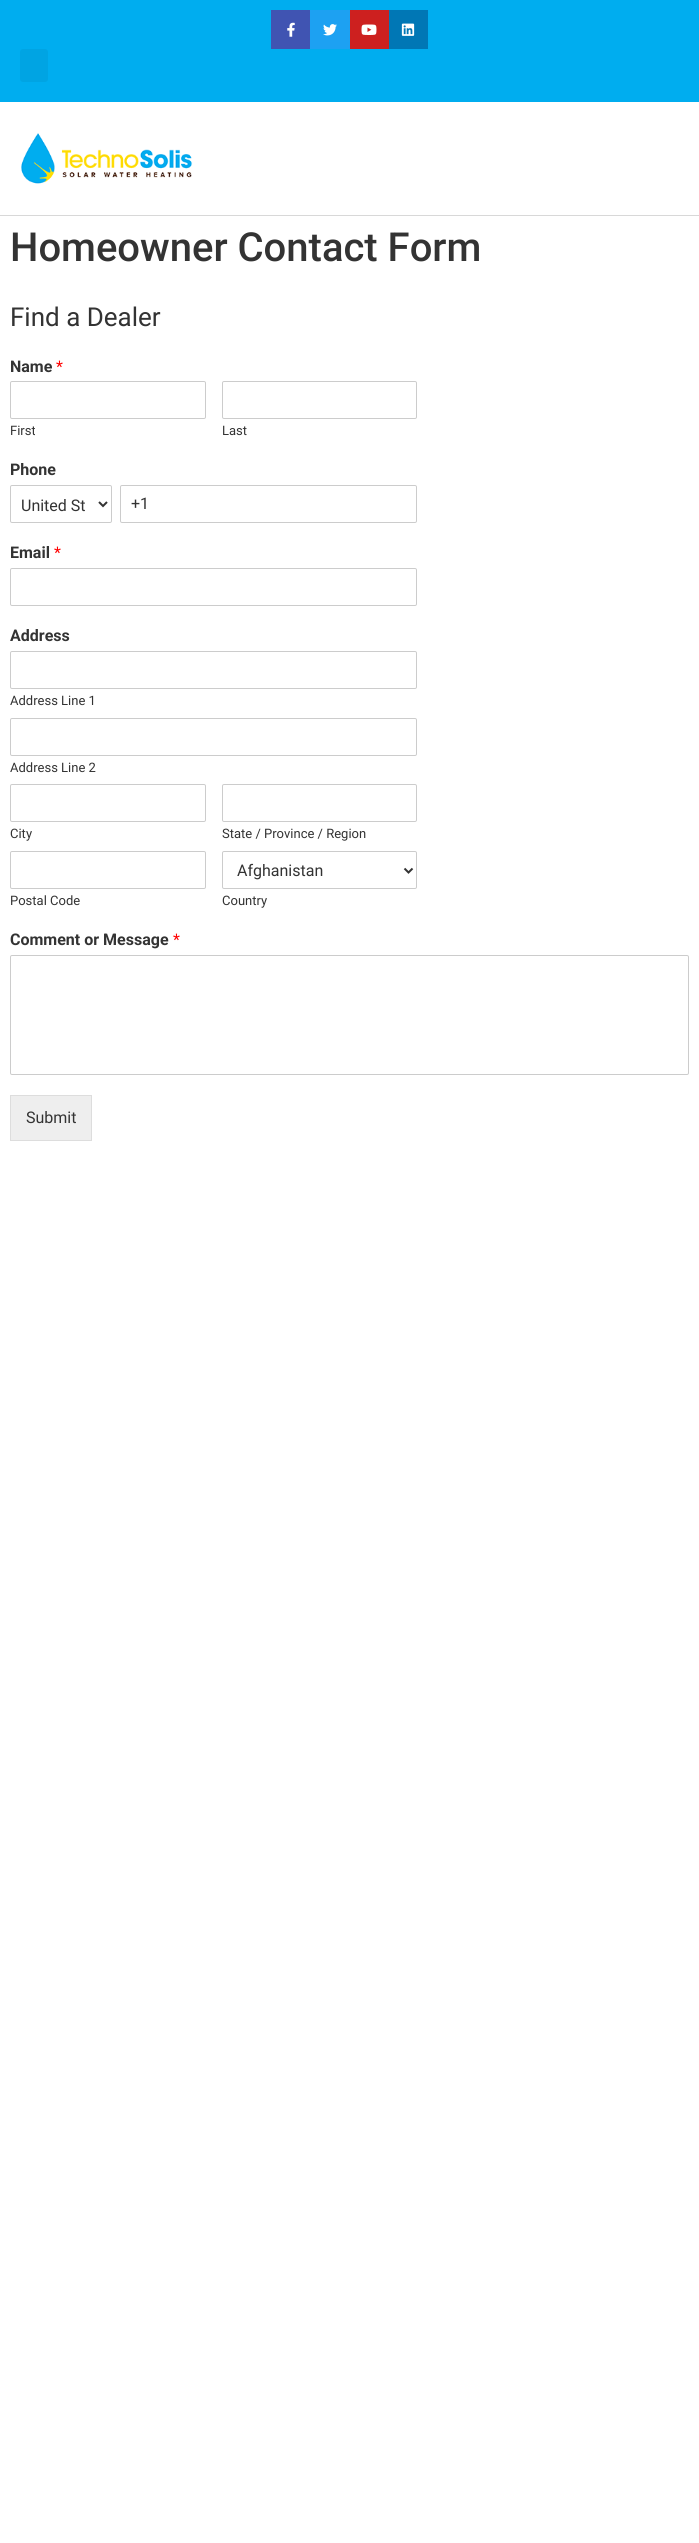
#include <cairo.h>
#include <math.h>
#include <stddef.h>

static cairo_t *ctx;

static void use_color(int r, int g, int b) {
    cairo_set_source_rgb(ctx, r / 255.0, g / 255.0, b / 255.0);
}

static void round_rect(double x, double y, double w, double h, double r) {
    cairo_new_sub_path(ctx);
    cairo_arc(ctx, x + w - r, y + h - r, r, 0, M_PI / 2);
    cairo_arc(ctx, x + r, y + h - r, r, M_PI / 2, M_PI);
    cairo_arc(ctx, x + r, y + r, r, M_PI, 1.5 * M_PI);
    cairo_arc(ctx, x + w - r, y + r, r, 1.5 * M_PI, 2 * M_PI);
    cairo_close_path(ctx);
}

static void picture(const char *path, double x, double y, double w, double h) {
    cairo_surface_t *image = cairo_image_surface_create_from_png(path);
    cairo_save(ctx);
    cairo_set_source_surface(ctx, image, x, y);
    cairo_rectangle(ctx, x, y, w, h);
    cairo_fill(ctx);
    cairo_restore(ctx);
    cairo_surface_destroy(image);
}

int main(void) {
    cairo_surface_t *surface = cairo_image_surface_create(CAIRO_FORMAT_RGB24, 699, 2543);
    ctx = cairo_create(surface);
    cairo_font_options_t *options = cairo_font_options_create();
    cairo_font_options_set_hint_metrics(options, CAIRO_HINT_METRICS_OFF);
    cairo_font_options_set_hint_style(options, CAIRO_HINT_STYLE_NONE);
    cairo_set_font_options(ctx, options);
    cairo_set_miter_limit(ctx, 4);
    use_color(255, 255, 255);
    cairo_paint(ctx);
    use_color(0, 173, 239);
    cairo_rectangle(ctx, 0, 0, 699, 102);
    cairo_fill(ctx);
    use_color(64, 84, 178);
    cairo_rectangle(ctx, 271, 10, 39, 39);
    cairo_fill(ctx);
    picture("img1.png", 287, 22, 8, 15);
    use_color(29, 161, 242);
    cairo_rectangle(ctx, 310, 10, 40, 39);
    cairo_fill(ctx);
    picture("img2.png", 323, 24, 14, 12);
    use_color(205, 32, 31);
    cairo_rectangle(ctx, 350, 10, 39, 39);
    cairo_fill(ctx);
    picture("img3.png", 361, 24, 16, 11);
    use_color(0, 119, 181);
    cairo_rectangle(ctx, 389, 10, 39, 39);
    cairo_fill(ctx);
    picture("img4.png", 401, 23, 14, 13);
    use_color(0, 164, 227);
    round_rect(20, 49, 28, 33, 3);
    cairo_fill(ctx);
    use_color(216, 216, 216);
    cairo_rectangle(ctx, 0, 215, 699, 1);
    cairo_fill(ctx);
    picture("img5.png", 21, 133, 172, 51);
    cairo_select_font_face(ctx, "Roboto Medium", CAIRO_FONT_SLANT_NORMAL, CAIRO_FONT_WEIGHT_NORMAL);
    cairo_set_font_size(ctx, 40);
    use_color(51, 51, 51);
    cairo_move_to(ctx, 10, 261);
    cairo_show_text(ctx, "Homeowner Contact Form");
    cairo_select_font_face(ctx, "Roboto", CAIRO_FONT_SLANT_NORMAL, CAIRO_FONT_WEIGHT_NORMAL);
    cairo_set_font_size(ctx, 26);
    cairo_move_to(ctx, 10, 326);
    cairo_show_text(ctx, "Find a Dealer");
    cairo_select_font_face(ctx, "Roboto", CAIRO_FONT_SLANT_NORMAL, CAIRO_FONT_WEIGHT_BOLD);
    cairo_set_font_size(ctx, 16);
    cairo_move_to(ctx, 10, 372);
    cairo_show_text(ctx, "Name");
    cairo_select_font_face(ctx, "Roboto", CAIRO_FONT_SLANT_NORMAL, CAIRO_FONT_WEIGHT_NORMAL);
    use_color(255, 0, 0);
    cairo_move_to(ctx, 56, 372);
    cairo_show_text(ctx, "*");
    round_rect(10.5, 381.5, 195, 37, 1.5);
    use_color(204, 204, 204);
    cairo_set_line_width(ctx, 1);
    cairo_stroke(ctx);
    cairo_set_font_size(ctx, 13);
    use_color(51, 51, 51);
    cairo_move_to(ctx, 10, 435);
    cairo_show_text(ctx, "First");
    round_rect(222.5, 381.5, 194, 37, 1.5);
    use_color(204, 204, 204);
    cairo_stroke(ctx);
    use_color(51, 51, 51);
    cairo_move_to(ctx, 222, 435);
    cairo_show_text(ctx, "Last");
    cairo_select_font_face(ctx, "Roboto", CAIRO_FONT_SLANT_NORMAL, CAIRO_FONT_WEIGHT_BOLD);
    cairo_set_font_size(ctx, 16);
    cairo_move_to(ctx, 10, 475);
    cairo_show_text(ctx, "Phone");
    round_rect(10.5, 485.5, 101, 37, 1.5);
    use_color(204, 204, 204);
    cairo_stroke(ctx);
    cairo_new_path(ctx);
    cairo_move_to(ctx, 99, 502);
    cairo_line_to(ctx, 103, 506);
    cairo_line_to(ctx, 107, 502);
    use_color(51, 51, 51);
    cairo_set_line_width(ctx, 2);
    cairo_stroke(ctx);
    cairo_select_font_face(ctx, "Roboto", CAIRO_FONT_SLANT_NORMAL, CAIRO_FONT_WEIGHT_NORMAL);
    cairo_move_to(ctx, 21, 511);
    cairo_show_text(ctx, "United St");
    round_rect(120.5, 485.5, 296, 37, 1.5);
    use_color(204, 204, 204);
    cairo_set_line_width(ctx, 1);
    cairo_stroke(ctx);
    use_color(51, 51, 51);
    cairo_move_to(ctx, 131, 509);
    cairo_show_text(ctx, "+1");
    cairo_select_font_face(ctx, "Roboto", CAIRO_FONT_SLANT_NORMAL, CAIRO_FONT_WEIGHT_BOLD);
    cairo_move_to(ctx, 10, 558);
    cairo_show_text(ctx, "Email");
    cairo_select_font_face(ctx, "Roboto", CAIRO_FONT_SLANT_NORMAL, CAIRO_FONT_WEIGHT_NORMAL);
    use_color(255, 0, 0);
    cairo_move_to(ctx, 54, 558);
    cairo_show_text(ctx, "*");
    round_rect(10.5, 568.5, 406, 37, 1.5);
    use_color(204, 204, 204);
    cairo_stroke(ctx);
    cairo_select_font_face(ctx, "Roboto", CAIRO_FONT_SLANT_NORMAL, CAIRO_FONT_WEIGHT_BOLD);
    use_color(51, 51, 51);
    cairo_move_to(ctx, 10, 641);
    cairo_show_text(ctx, "Address");
    round_rect(10.5, 651.5, 406, 37, 1.5);
    use_color(204, 204, 204);
    cairo_stroke(ctx);
    cairo_select_font_face(ctx, "Roboto", CAIRO_FONT_SLANT_NORMAL, CAIRO_FONT_WEIGHT_NORMAL);
    cairo_set_font_size(ctx, 13);
    use_color(51, 51, 51);
    cairo_move_to(ctx, 10, 705);
    cairo_show_text(ctx, "Address Line 1");
    round_rect(10.5, 718.5, 406, 37, 1.5);
    use_color(204, 204, 204);
    cairo_stroke(ctx);
    use_color(51, 51, 51);
    cairo_move_to(ctx, 10, 772);
    cairo_show_text(ctx, "Address Line 2");
    round_rect(10.5, 784.5, 195, 37, 1.5);
    use_color(204, 204, 204);
    cairo_stroke(ctx);
    use_color(51, 51, 51);
    cairo_move_to(ctx, 10, 838);
    cairo_show_text(ctx, "City");
    round_rect(222.5, 784.5, 194, 37, 1.5);
    use_color(204, 204, 204);
    cairo_stroke(ctx);
    use_color(51, 51, 51);
    cairo_move_to(ctx, 222, 838);
    cairo_show_text(ctx, "State / Province / Region");
    round_rect(10.5, 851.5, 195, 37, 1.5);
    use_color(204, 204, 204);
    cairo_stroke(ctx);
    use_color(51, 51, 51);
    cairo_move_to(ctx, 10, 905);
    cairo_show_text(ctx, "Postal Code");
    round_rect(222.5, 851.5, 194, 37, 1.5);
    use_color(204, 204, 204);
    cairo_stroke(ctx);
    cairo_new_path(ctx);
    cairo_move_to(ctx, 404.5, 868.5);
    cairo_line_to(ctx, 408.5, 872.5);
    cairo_line_to(ctx, 412.5, 868.5);
    use_color(51, 51, 51);
    cairo_set_line_width(ctx, 2);
    cairo_stroke(ctx);
    cairo_set_font_size(ctx, 16);
    cairo_move_to(ctx, 237, 876);
    cairo_show_text(ctx, "Afghanistan");
    cairo_set_font_size(ctx, 13);
    cairo_move_to(ctx, 222, 905);
    cairo_show_text(ctx, "Country");
    cairo_select_font_face(ctx, "Roboto", CAIRO_FONT_SLANT_NORMAL, CAIRO_FONT_WEIGHT_BOLD);
    cairo_set_font_size(ctx, 16);
    cairo_move_to(ctx, 10, 945);
    cairo_show_text(ctx, "Comment or Message");
    cairo_select_font_face(ctx, "Roboto", CAIRO_FONT_SLANT_NORMAL, CAIRO_FONT_WEIGHT_NORMAL);
    use_color(255, 0, 0);
    cairo_move_to(ctx, 173, 945);
    cairo_show_text(ctx, "*");
    round_rect(10.5, 955.5, 678, 119, 1.5);
    use_color(204, 204, 204);
    cairo_set_line_width(ctx, 1);
    cairo_stroke(ctx);
    use_color(238, 238, 238);
    cairo_rectangle(ctx, 10.5, 1095.5, 81, 45);
    cairo_fill_preserve(ctx);
    use_color(221, 221, 221);
    cairo_stroke(ctx);
    use_color(51, 51, 51);
    cairo_move_to(ctx, 26, 1123);
    cairo_show_text(ctx, "Submit");
    cairo_surface_write_to_png(surface, "result.png");
    cairo_font_options_destroy(options);
    cairo_destroy(ctx);
    cairo_surface_destroy(surface);
    return 0;
}
